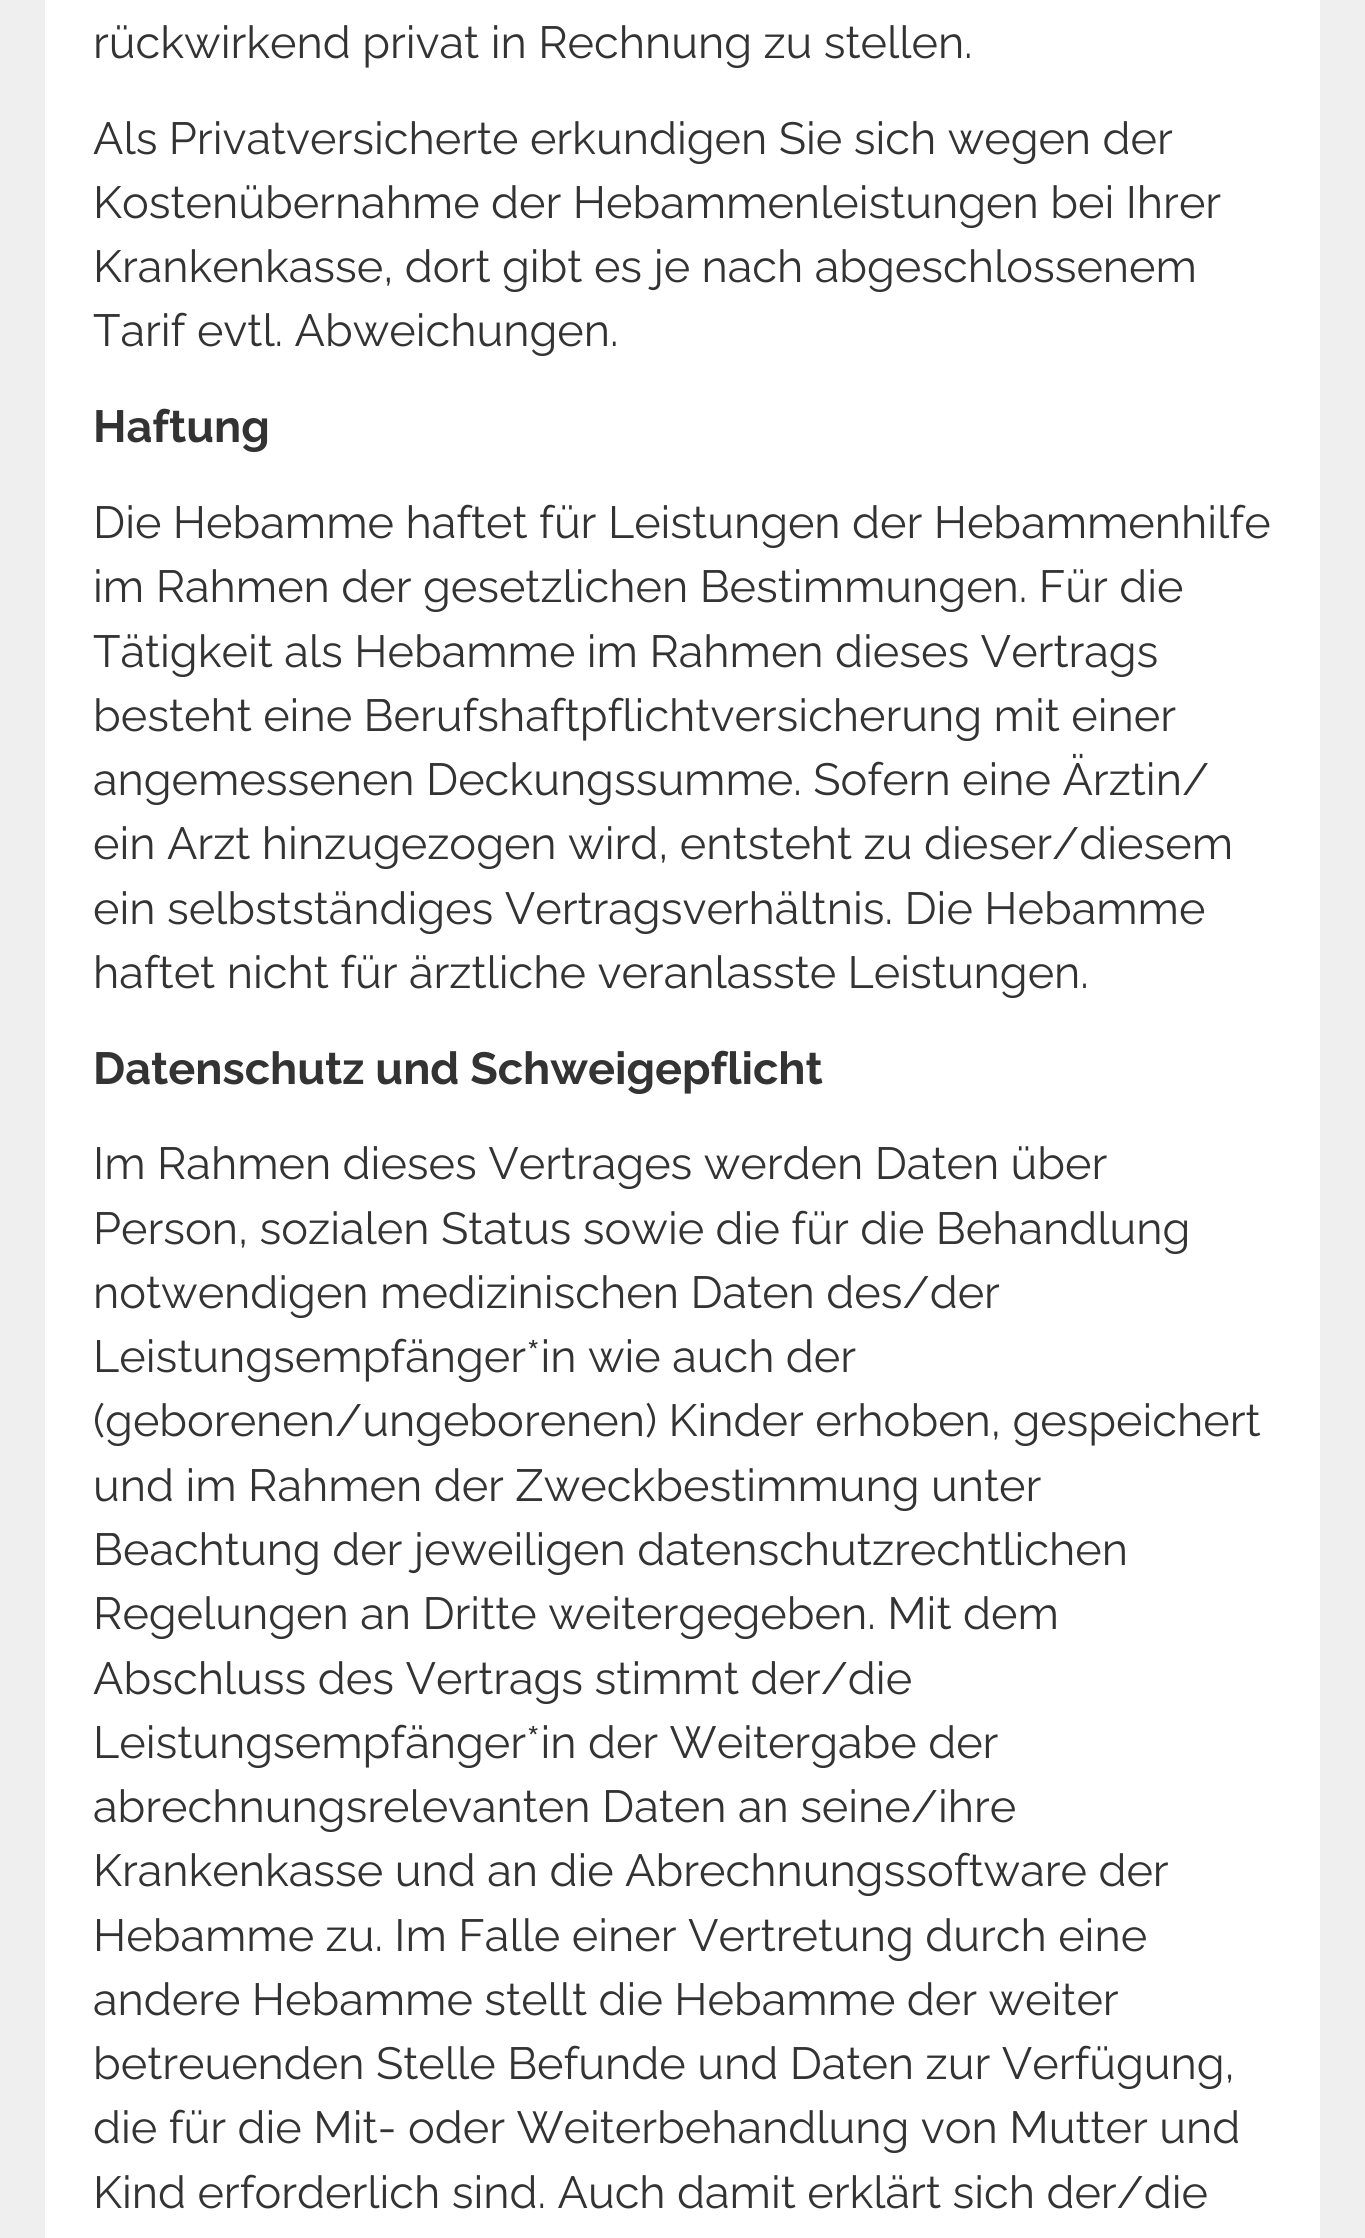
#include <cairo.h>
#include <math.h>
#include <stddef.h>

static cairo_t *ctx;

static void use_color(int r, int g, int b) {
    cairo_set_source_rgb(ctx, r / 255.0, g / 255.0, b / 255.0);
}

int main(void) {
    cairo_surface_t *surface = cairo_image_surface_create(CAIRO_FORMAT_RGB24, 1365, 2238);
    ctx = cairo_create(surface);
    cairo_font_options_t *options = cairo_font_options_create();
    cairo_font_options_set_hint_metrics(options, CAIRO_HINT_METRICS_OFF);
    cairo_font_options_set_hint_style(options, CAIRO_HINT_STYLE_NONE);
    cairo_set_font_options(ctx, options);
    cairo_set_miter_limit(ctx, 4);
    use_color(239, 239, 239);
    cairo_paint(ctx);
    use_color(255, 255, 255);
    cairo_rectangle(ctx, 45, 0, 1275, 2238);
    cairo_fill(ctx);
    cairo_select_font_face(ctx, "Raleway", CAIRO_FONT_SLANT_NORMAL, CAIRO_FONT_WEIGHT_NORMAL);
    cairo_set_font_size(ctx, 45);
    use_color(51, 51, 51);
    cairo_move_to(ctx, 93, 58);
    cairo_show_text(ctx, "rückwirkend privat in Rechnung zu stellen.");
    cairo_move_to(ctx, 93, 154);
    cairo_show_text(ctx, "Als Privatversicherte erkundigen Sie sich wegen der");
    cairo_move_to(ctx, 93, 218);
    cairo_show_text(ctx, "Kostenübernahme der Hebammenleistungen bei Ihrer");
    cairo_move_to(ctx, 93, 282);
    cairo_show_text(ctx, "Krankenkasse, dort gibt es je nach abgeschlossenem");
    cairo_move_to(ctx, 93, 346);
    cairo_show_text(ctx, "Tarif evtl. Abweichungen.");
    cairo_select_font_face(ctx, "Raleway", CAIRO_FONT_SLANT_NORMAL, CAIRO_FONT_WEIGHT_BOLD);
    cairo_move_to(ctx, 93, 442);
    cairo_show_text(ctx, "Haftung");
    cairo_select_font_face(ctx, "Raleway", CAIRO_FONT_SLANT_NORMAL, CAIRO_FONT_WEIGHT_NORMAL);
    cairo_move_to(ctx, 93, 538);
    cairo_show_text(ctx, "Die Hebamme haftet für Leistungen der Hebammenhilfe");
    cairo_move_to(ctx, 93, 602);
    cairo_show_text(ctx, "im Rahmen der gesetzlichen Bestimmungen. Für die");
    cairo_move_to(ctx, 93, 667);
    cairo_show_text(ctx, "Tätigkeit als Hebamme im Rahmen dieses Vertrags");
    cairo_move_to(ctx, 93, 731);
    cairo_show_text(ctx, "besteht eine Berufshaftpflichtversicherung mit einer");
    cairo_move_to(ctx, 93, 795);
    cairo_show_text(ctx, "angemessenen Deckungssumme. Sofern eine Ärztin/");
    cairo_move_to(ctx, 93, 859);
    cairo_show_text(ctx, "ein Arzt hinzugezogen wird, entsteht zu dieser/diesem");
    cairo_move_to(ctx, 93, 924);
    cairo_show_text(ctx, "ein selbstständiges Vertragsverhältnis. Die Hebamme");
    cairo_move_to(ctx, 93, 988);
    cairo_show_text(ctx, "haftet nicht für ärztliche veranlasste Leistungen.");
    cairo_select_font_face(ctx, "Raleway", CAIRO_FONT_SLANT_NORMAL, CAIRO_FONT_WEIGHT_BOLD);
    cairo_move_to(ctx, 93, 1084);
    cairo_show_text(ctx, "Datenschutz und Schweigepflicht");
    cairo_select_font_face(ctx, "Raleway", CAIRO_FONT_SLANT_NORMAL, CAIRO_FONT_WEIGHT_NORMAL);
    cairo_move_to(ctx, 93, 1179);
    cairo_show_text(ctx, "Im Rahmen dieses Vertrages werden Daten über");
    cairo_move_to(ctx, 93, 1244);
    cairo_show_text(ctx, "Person, sozialen Status sowie die für die Behandlung");
    cairo_move_to(ctx, 93, 1308);
    cairo_show_text(ctx, "notwendigen medizinischen Daten des/der");
    cairo_move_to(ctx, 93, 1372);
    cairo_show_text(ctx, "Leistungsempfänger*in wie auch der");
    cairo_move_to(ctx, 93, 1436);
    cairo_show_text(ctx, "(geborenen/ungeborenen) Kinder erhoben, gespeichert");
    cairo_move_to(ctx, 93, 1501);
    cairo_show_text(ctx, "und im Rahmen der Zweckbestimmung unter");
    cairo_move_to(ctx, 93, 1565);
    cairo_show_text(ctx, "Beachtung der jeweiligen datenschutzrechtlichen");
    cairo_move_to(ctx, 93, 1629);
    cairo_show_text(ctx, "Regelungen an Dritte weitergegeben. Mit dem");
    cairo_move_to(ctx, 93, 1694);
    cairo_show_text(ctx, "Abschluss des Vertrags stimmt der/die");
    cairo_move_to(ctx, 93, 1758);
    cairo_show_text(ctx, "Leistungsempfänger*in der Weitergabe der");
    cairo_move_to(ctx, 93, 1822);
    cairo_show_text(ctx, "abrechnungsrelevanten Daten an seine/ihre");
    cairo_move_to(ctx, 93, 1886);
    cairo_show_text(ctx, "Krankenkasse und an die Abrechnungssoftware der");
    cairo_move_to(ctx, 93, 1951);
    cairo_show_text(ctx, "Hebamme zu. Im Falle einer Vertretung durch eine");
    cairo_move_to(ctx, 93, 2015);
    cairo_show_text(ctx, "andere Hebamme stellt die Hebamme der weiter");
    cairo_move_to(ctx, 93, 2079);
    cairo_show_text(ctx, "betreuenden Stelle Befunde und Daten zur Verfügung,");
    cairo_move_to(ctx, 93, 2143);
    cairo_show_text(ctx, "die für die Mit- oder Weiterbehandlung von Mutter und");
    cairo_move_to(ctx, 93, 2208);
    cairo_show_text(ctx, "Kind erforderlich sind. Auch damit erklärt sich der/die");
    cairo_surface_write_to_png(surface, "result.png");
    cairo_font_options_destroy(options);
    cairo_destroy(ctx);
    cairo_surface_destroy(surface);
    return 0;
}
